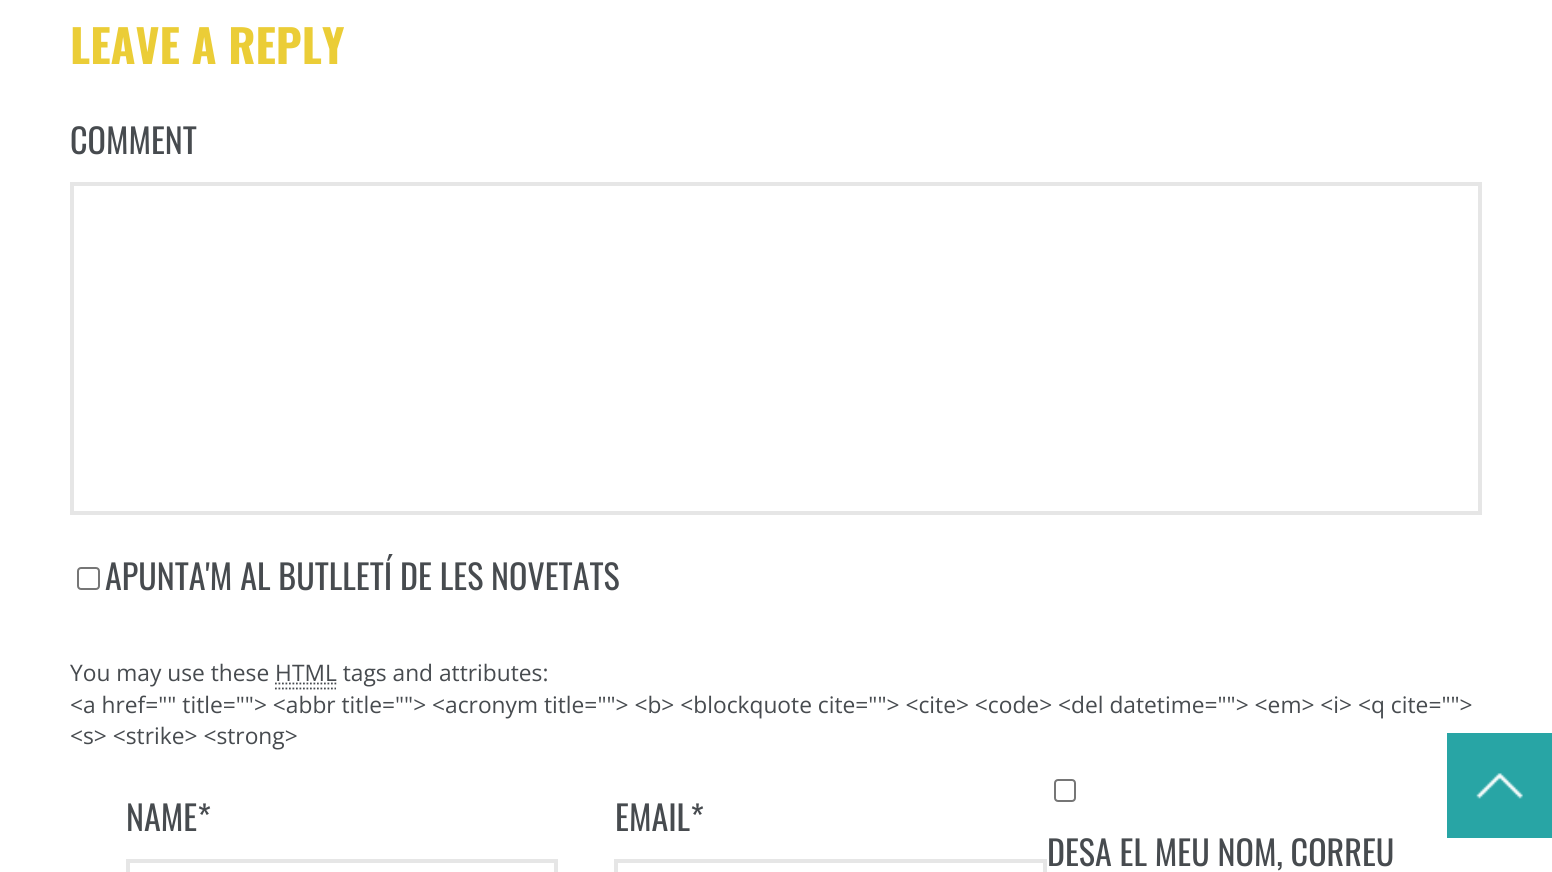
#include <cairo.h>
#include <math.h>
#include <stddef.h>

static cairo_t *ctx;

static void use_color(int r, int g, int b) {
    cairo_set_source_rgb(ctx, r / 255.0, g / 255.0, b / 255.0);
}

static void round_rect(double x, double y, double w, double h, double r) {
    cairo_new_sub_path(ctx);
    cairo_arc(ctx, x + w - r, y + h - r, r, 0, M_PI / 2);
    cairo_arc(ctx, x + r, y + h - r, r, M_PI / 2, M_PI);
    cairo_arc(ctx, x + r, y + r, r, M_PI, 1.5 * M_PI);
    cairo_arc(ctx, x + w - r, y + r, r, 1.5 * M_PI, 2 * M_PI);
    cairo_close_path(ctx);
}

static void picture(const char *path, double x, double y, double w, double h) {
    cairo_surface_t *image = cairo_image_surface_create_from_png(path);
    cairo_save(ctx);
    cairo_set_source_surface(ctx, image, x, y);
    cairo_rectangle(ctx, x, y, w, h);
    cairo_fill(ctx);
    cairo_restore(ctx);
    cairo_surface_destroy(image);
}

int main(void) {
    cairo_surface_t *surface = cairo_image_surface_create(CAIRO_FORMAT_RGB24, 1552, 872);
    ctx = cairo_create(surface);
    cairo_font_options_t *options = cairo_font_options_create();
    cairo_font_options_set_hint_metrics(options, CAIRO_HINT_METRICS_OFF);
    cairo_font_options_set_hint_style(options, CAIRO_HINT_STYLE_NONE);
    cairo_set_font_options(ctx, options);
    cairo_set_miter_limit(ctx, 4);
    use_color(255, 255, 255);
    cairo_paint(ctx);
    cairo_select_font_face(ctx, "Oswald", CAIRO_FONT_SLANT_NORMAL, CAIRO_FONT_WEIGHT_BOLD);
    cairo_set_font_size(ctx, 45.5);
    use_color(235, 205, 55);
    cairo_move_to(ctx, 70, 64);
    cairo_show_text(ctx, "LEAVE A REPLY");
    cairo_select_font_face(ctx, "Oswald", CAIRO_FONT_SLANT_NORMAL, CAIRO_FONT_WEIGHT_NORMAL);
    cairo_set_font_size(ctx, 34.1);
    use_color(71, 75, 79);
    cairo_move_to(ctx, 70, 154);
    cairo_show_text(ctx, "COMMENT");
    cairo_rectangle(ctx, 72, 184, 1408, 329);
    use_color(230, 230, 230);
    cairo_set_line_width(ctx, 4);
    cairo_stroke(ctx);
    round_rect(78, 568, 21, 21, 3);
    use_color(118, 118, 118);
    cairo_set_line_width(ctx, 2);
    cairo_stroke(ctx);
    use_color(71, 75, 79);
    cairo_move_to(ctx, 105, 590);
    cairo_show_text(ctx, "APUNTA'M AL BUTLLETÍ DE LES NOVETATS");
    cairo_select_font_face(ctx, "Open Sans", CAIRO_FONT_SLANT_NORMAL, CAIRO_FONT_WEIGHT_NORMAL);
    cairo_set_font_size(ctx, 22.75);
    cairo_move_to(ctx, 70, 681);
    cairo_show_text(ctx, "You may use these HTML tags and attributes:");
    cairo_new_path(ctx);
    cairo_move_to(ctx, 275, 688.5);
    cairo_line_to(ctx, 336, 688.5);
    cairo_move_to(ctx, 275, 683.5);
    cairo_line_to(ctx, 337, 683.5);
    cairo_set_line_width(ctx, 1.8);
    cairo_set_dash(ctx, (double[]){1.75, 1.75}, 2, 0);
    cairo_stroke(ctx);
    cairo_move_to(ctx, 70, 713);
    cairo_show_text(ctx, "<a href=\"\" title=\"\"> <abbr title=\"\"> <acronym title=\"\"> <b> <blockquote cite=\"\"> <cite> <code> <del datetime=\"\"> <em> <i> <q cite=\"\">");
    cairo_move_to(ctx, 70, 744);
    cairo_show_text(ctx, "<s> <strike> <strong>");
    cairo_select_font_face(ctx, "Oswald", CAIRO_FONT_SLANT_NORMAL, CAIRO_FONT_WEIGHT_NORMAL);
    cairo_set_font_size(ctx, 34.1);
    cairo_move_to(ctx, 126, 831);
    cairo_show_text(ctx, "NAME*");
    cairo_rectangle(ctx, 128, 861, 428, 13);
    use_color(230, 230, 230);
    cairo_set_line_width(ctx, 4);
    cairo_set_dash(ctx, NULL, 0, 0);
    cairo_stroke(ctx);
    use_color(71, 75, 79);
    cairo_move_to(ctx, 615, 831);
    cairo_show_text(ctx, "EMAIL*");
    cairo_rectangle(ctx, 616, 861, 429, 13);
    use_color(230, 230, 230);
    cairo_stroke(ctx);
    round_rect(1055, 780, 20, 21, 3);
    use_color(118, 118, 118);
    cairo_set_line_width(ctx, 2);
    cairo_stroke(ctx);
    use_color(71, 75, 79);
    cairo_move_to(ctx, 1047, 866);
    cairo_show_text(ctx, "DESA EL MEU NOM, CORREU");
    use_color(40, 165, 165);
    cairo_rectangle(ctx, 1447, 733, 105, 105);
    cairo_fill(ctx);
    picture("img1.png", 1476, 773, 47, 26);
    cairo_surface_write_to_png(surface, "result.png");
    cairo_font_options_destroy(options);
    cairo_destroy(ctx);
    cairo_surface_destroy(surface);
    return 0;
}
